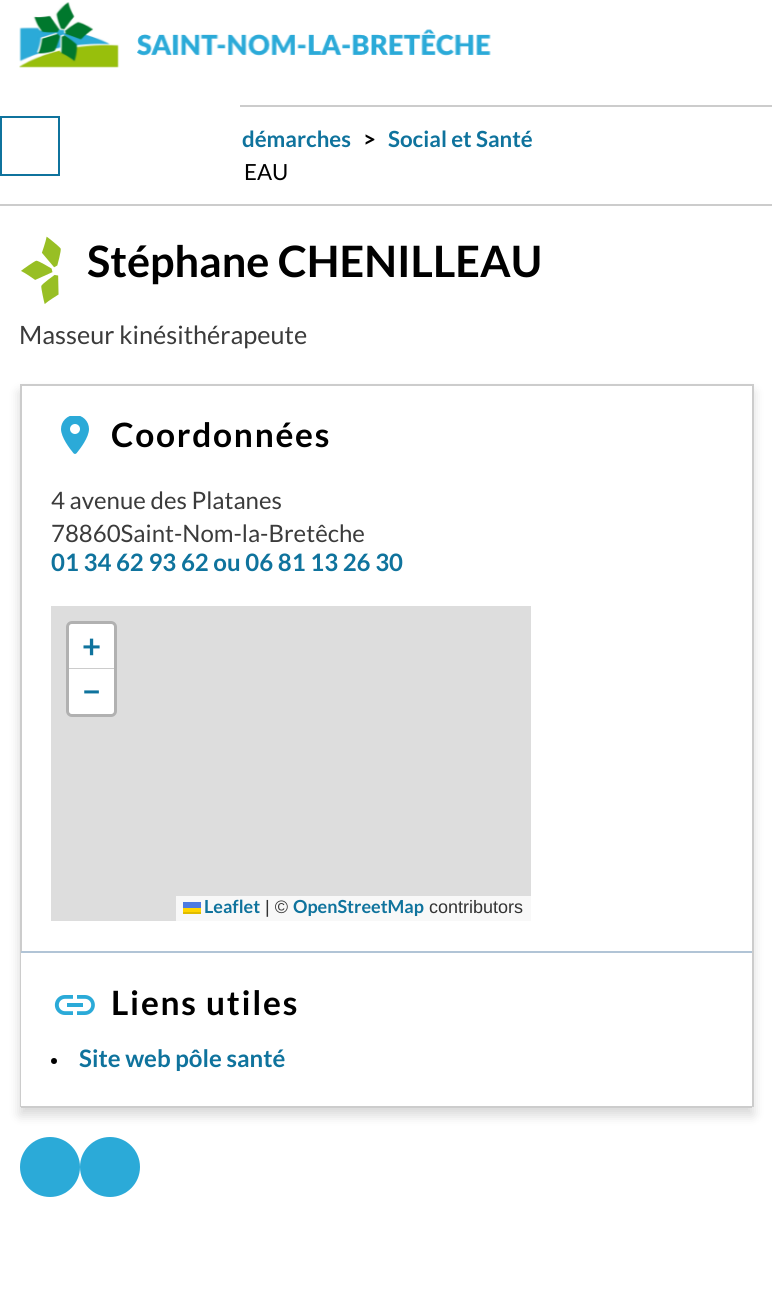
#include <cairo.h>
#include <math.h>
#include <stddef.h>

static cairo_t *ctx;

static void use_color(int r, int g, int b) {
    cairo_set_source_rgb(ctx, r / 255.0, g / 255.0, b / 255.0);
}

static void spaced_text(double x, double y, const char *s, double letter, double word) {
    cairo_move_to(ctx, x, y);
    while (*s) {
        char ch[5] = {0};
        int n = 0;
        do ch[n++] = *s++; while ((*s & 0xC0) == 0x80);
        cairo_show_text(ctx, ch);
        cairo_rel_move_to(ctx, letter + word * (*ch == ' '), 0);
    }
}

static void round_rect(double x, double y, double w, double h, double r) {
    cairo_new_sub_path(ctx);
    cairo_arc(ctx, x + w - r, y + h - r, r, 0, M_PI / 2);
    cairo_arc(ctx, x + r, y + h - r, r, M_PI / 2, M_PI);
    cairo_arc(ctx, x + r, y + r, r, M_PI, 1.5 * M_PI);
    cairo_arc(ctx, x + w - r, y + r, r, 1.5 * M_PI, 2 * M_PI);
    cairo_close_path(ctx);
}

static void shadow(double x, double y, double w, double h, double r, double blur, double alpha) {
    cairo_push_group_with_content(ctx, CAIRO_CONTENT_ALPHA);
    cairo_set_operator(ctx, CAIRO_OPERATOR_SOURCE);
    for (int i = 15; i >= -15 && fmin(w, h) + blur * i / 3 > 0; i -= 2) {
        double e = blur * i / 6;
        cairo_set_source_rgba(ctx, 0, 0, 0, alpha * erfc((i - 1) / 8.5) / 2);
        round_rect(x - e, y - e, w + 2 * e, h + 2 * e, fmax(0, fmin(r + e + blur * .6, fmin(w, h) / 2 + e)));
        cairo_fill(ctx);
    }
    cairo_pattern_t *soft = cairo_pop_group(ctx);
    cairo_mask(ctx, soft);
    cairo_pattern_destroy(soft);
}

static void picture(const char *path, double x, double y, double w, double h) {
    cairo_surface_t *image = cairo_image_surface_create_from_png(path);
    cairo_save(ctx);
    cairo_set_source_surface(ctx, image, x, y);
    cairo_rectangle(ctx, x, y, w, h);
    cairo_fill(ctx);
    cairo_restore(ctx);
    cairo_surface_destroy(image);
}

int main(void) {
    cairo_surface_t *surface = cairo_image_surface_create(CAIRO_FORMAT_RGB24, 772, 1299);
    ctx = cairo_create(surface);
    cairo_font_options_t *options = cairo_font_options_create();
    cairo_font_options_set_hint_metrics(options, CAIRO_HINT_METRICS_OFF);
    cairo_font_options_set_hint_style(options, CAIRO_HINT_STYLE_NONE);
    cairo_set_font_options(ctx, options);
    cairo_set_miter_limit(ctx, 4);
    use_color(255, 255, 255);
    cairo_paint(ctx);
    picture("img1.png", 19, 2, 472, 66);
    cairo_rectangle(ctx, 1, 117, 58, 58);
    use_color(15, 115, 157);
    cairo_stroke(ctx);
    use_color(204, 204, 204);
    cairo_rectangle(ctx, 240, 105, 532, 2);
    cairo_fill(ctx);
    cairo_rectangle(ctx, 0, 204, 772, 2);
    cairo_fill(ctx);
    cairo_select_font_face(ctx, "Lato", CAIRO_FONT_SLANT_NORMAL, CAIRO_FONT_WEIGHT_BOLD);
    cairo_set_font_size(ctx, 22.25);
    use_color(15, 115, 157);
    cairo_move_to(ctx, 242, 147);
    cairo_show_text(ctx, "démarches");
    use_color(0, 0, 0);
    cairo_move_to(ctx, 363, 147);
    cairo_show_text(ctx, ">");
    use_color(15, 115, 157);
    cairo_move_to(ctx, 388, 147);
    cairo_show_text(ctx, "Social et Santé");
    cairo_select_font_face(ctx, "Lato", CAIRO_FONT_SLANT_NORMAL, CAIRO_FONT_WEIGHT_NORMAL);
    use_color(0, 0, 0);
    cairo_move_to(ctx, 244, 180);
    cairo_show_text(ctx, "EAU");
    picture("img2.png", 21, 236, 40, 68);
    cairo_select_font_face(ctx, "Lato", CAIRO_FONT_SLANT_NORMAL, CAIRO_FONT_WEIGHT_BOLD);
    cairo_set_font_size(ctx, 43.25);
    cairo_move_to(ctx, 87, 277);
    cairo_show_text(ctx, "Stéphane CHENILLEAU");
    cairo_select_font_face(ctx, "Lato", CAIRO_FONT_SLANT_NORMAL, CAIRO_FONT_WEIGHT_NORMAL);
    cairo_set_font_size(ctx, 25.25);
    use_color(59, 59, 59);
    cairo_move_to(ctx, 19, 344);
    cairo_show_text(ctx, "Masseur kinésithérapeute");
    cairo_save(ctx);
    cairo_set_fill_rule(ctx, CAIRO_FILL_RULE_EVEN_ODD);
    cairo_new_path(ctx);
    cairo_move_to(ctx, 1, 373);
    cairo_line_to(ctx, 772, 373);
    cairo_line_to(ctx, 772, 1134);
    cairo_line_to(ctx, 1, 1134);
    cairo_close_path(ctx);
    cairo_move_to(ctx, 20, 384);
    cairo_line_to(ctx, 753, 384);
    cairo_line_to(ctx, 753, 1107);
    cairo_line_to(ctx, 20, 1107);
    cairo_close_path(ctx);
    cairo_clip(ctx);
    use_color(0, 0, 0);
    shadow(20, 392, 733, 723, 0, 6, 0.16);
    cairo_restore(ctx);
    use_color(204, 204, 204);
    cairo_rectangle(ctx, 20, 384, 733, 2);
    cairo_fill(ctx);
    cairo_rectangle(ctx, 752, 384, 2, 723);
    cairo_fill(ctx);
    cairo_rectangle(ctx, 20, 384, 2, 723);
    cairo_fill(ctx);
    use_color(177, 196, 214);
    cairo_rectangle(ctx, 21, 951, 731, 2);
    cairo_fill(ctx);
    picture("img3.png", 61, 416, 28, 38);
    cairo_select_font_face(ctx, "Lato", CAIRO_FONT_SLANT_NORMAL, CAIRO_FONT_WEIGHT_BOLD);
    cairo_set_font_size(ctx, 33.5);
    use_color(0, 0, 0);
    spaced_text(111, 447, "Coordonnées", 1.75, 0);
    cairo_select_font_face(ctx, "Lato", CAIRO_FONT_SLANT_NORMAL, CAIRO_FONT_WEIGHT_NORMAL);
    cairo_set_font_size(ctx, 24);
    use_color(59, 59, 59);
    cairo_move_to(ctx, 51, 509);
    cairo_show_text(ctx, "4 avenue des Platanes");
    cairo_move_to(ctx, 51, 542);
    cairo_show_text(ctx, "78860Saint-Nom-la-Bretêche");
    cairo_select_font_face(ctx, "Lato", CAIRO_FONT_SLANT_NORMAL, CAIRO_FONT_WEIGHT_BOLD);
    use_color(15, 115, 157);
    cairo_move_to(ctx, 51, 571);
    cairo_show_text(ctx, "01 34 62 93 62 ou 06 81 13 26 30");
    use_color(221, 221, 221);
    cairo_rectangle(ctx, 51, 606, 480, 315);
    cairo_fill(ctx);
    round_rect(67.5, 622.5, 48, 93, 4.5);
    use_color(177, 177, 177);
    cairo_set_line_width(ctx, 3);
    cairo_stroke(ctx);
    use_color(255, 255, 255);
    cairo_new_path(ctx);
    cairo_move_to(ctx, 72, 624);
    cairo_line_to(ctx, 111, 624);
    cairo_curve_to(ctx, 112.5, 624, 114, 625.5, 114, 627);
    cairo_line_to(ctx, 114, 669);
    cairo_line_to(ctx, 69, 669);
    cairo_line_to(ctx, 69, 627);
    cairo_curve_to(ctx, 69, 625.5, 70.5, 624, 72, 624);
    cairo_close_path(ctx);
    cairo_fill(ctx);
    use_color(204, 204, 204);
    cairo_rectangle(ctx, 69, 668, 45, 1);
    cairo_fill(ctx);
    cairo_set_font_size(ctx, 33);
    use_color(15, 115, 157);
    cairo_move_to(ctx, 82, 658);
    cairo_show_text(ctx, "+");
    use_color(255, 255, 255);
    cairo_new_path(ctx);
    cairo_move_to(ctx, 69, 669);
    cairo_line_to(ctx, 114, 669);
    cairo_line_to(ctx, 114, 711);
    cairo_curve_to(ctx, 114, 712.5, 112.5, 714, 111, 714);
    cairo_line_to(ctx, 72, 714);
    cairo_curve_to(ctx, 70.5, 714, 69, 712.5, 69, 711);
    cairo_close_path(ctx);
    cairo_fill(ctx);
    use_color(15, 115, 157);
    cairo_move_to(ctx, 82, 703);
    cairo_show_text(ctx, "−");
    use_color(248, 248, 248);
    cairo_rectangle(ctx, 176, 896, 355, 25);
    cairo_fill(ctx);
    cairo_set_font_size(ctx, 18);
    use_color(15, 115, 157);
    cairo_move_to(ctx, 204, 913);
    cairo_show_text(ctx, "Leaflet");
    use_color(76, 123, 225);
    cairo_rectangle(ctx, 183, 902, 18, 6);
    cairo_fill(ctx);
    use_color(255, 213, 0);
    cairo_rectangle(ctx, 183, 908, 18, 4);
    cairo_fill(ctx);
    use_color(224, 188, 0);
    cairo_rectangle(ctx, 183, 912, 18, 2);
    cairo_fill(ctx);
    cairo_select_font_face(ctx, "Liberation Sans", CAIRO_FONT_SLANT_NORMAL, CAIRO_FONT_WEIGHT_NORMAL);
    use_color(51, 51, 51);
    cairo_move_to(ctx, 265, 913);
    cairo_show_text(ctx, "| ©");
    cairo_select_font_face(ctx, "Lato", CAIRO_FONT_SLANT_NORMAL, CAIRO_FONT_WEIGHT_BOLD);
    use_color(15, 115, 157);
    cairo_move_to(ctx, 293, 913);
    cairo_show_text(ctx, "OpenStreetMap");
    cairo_select_font_face(ctx, "Liberation Sans", CAIRO_FONT_SLANT_NORMAL, CAIRO_FONT_WEIGHT_NORMAL);
    use_color(51, 51, 51);
    cairo_move_to(ctx, 429, 913);
    cairo_show_text(ctx, "contributors");
    use_color(255, 255, 255);
    cairo_rectangle(ctx, 21, 953, 1, 153);
    cairo_fill(ctx);
    use_color(204, 204, 204);
    cairo_rectangle(ctx, 21, 1106, 731, 2);
    cairo_fill(ctx);
    picture("img4.png", 54, 995, 41, 20);
    cairo_select_font_face(ctx, "Lato", CAIRO_FONT_SLANT_NORMAL, CAIRO_FONT_WEIGHT_BOLD);
    cairo_set_font_size(ctx, 33.5);
    use_color(0, 0, 0);
    spaced_text(111, 1015, "Liens utiles", 1.75, 0);
    cairo_new_path(ctx);
    cairo_arc(ctx, 54, 1061, 3, 0, 2 * M_PI);
    cairo_fill(ctx);
    cairo_set_font_size(ctx, 24);
    use_color(15, 115, 157);
    cairo_move_to(ctx, 79, 1067);
    cairo_show_text(ctx, "Site web pôle santé");
    use_color(43, 170, 216);
    cairo_new_path(ctx);
    cairo_arc(ctx, 50, 1167, 30, 0, 2 * M_PI);
    cairo_fill(ctx);
    cairo_arc(ctx, 110, 1167, 30, 0, 2 * M_PI);
    cairo_fill(ctx);
    cairo_surface_write_to_png(surface, "result.png");
    cairo_font_options_destroy(options);
    cairo_destroy(ctx);
    cairo_surface_destroy(surface);
    return 0;
}
